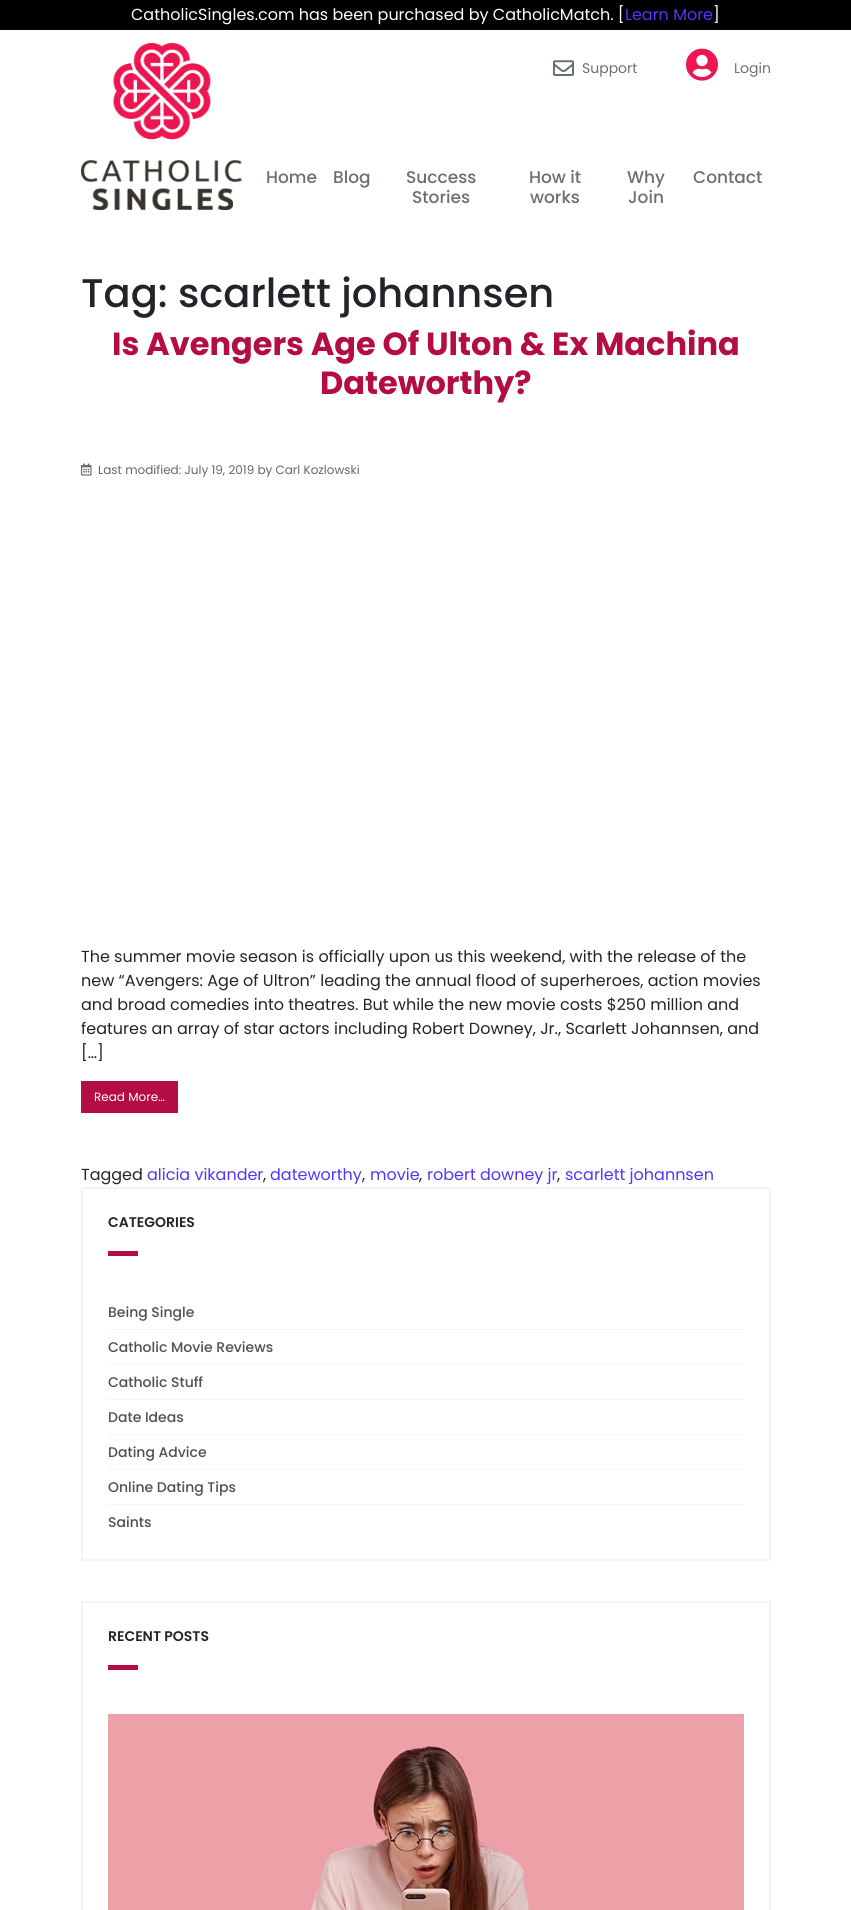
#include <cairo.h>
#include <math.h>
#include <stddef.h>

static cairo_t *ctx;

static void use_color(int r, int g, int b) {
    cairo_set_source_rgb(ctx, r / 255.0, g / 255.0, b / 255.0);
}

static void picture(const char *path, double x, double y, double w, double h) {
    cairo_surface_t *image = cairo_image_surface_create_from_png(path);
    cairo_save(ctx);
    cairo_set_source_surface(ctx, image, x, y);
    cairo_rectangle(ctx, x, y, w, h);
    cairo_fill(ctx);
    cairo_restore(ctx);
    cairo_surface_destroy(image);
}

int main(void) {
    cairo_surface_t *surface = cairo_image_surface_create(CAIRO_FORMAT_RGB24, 851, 1910);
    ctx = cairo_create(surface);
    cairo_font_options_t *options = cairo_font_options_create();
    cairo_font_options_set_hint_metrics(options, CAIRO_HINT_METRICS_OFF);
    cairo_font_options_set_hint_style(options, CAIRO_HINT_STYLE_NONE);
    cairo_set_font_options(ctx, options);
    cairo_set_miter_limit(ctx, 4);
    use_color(255, 255, 255);
    cairo_paint(ctx);
    use_color(0, 0, 0);
    cairo_rectangle(ctx, 0, 0, 851, 30);
    cairo_fill(ctx);
    cairo_select_font_face(ctx, "Poppins", CAIRO_FONT_SLANT_NORMAL, CAIRO_FONT_WEIGHT_NORMAL);
    cairo_set_font_size(ctx, 16);
    use_color(255, 255, 255);
    cairo_move_to(ctx, 131, 20);
    cairo_show_text(ctx, "CatholicSingles.com has been purchased by CatholicMatch. [");
    use_color(85, 51, 255);
    cairo_move_to(ctx, 625, 20);
    cairo_show_text(ctx, "Learn More");
    use_color(255, 255, 255);
    cairo_move_to(ctx, 713, 20);
    cairo_show_text(ctx, "]");
    picture("img1.png", 81, 43, 161, 167);
    picture("img2.png", 553, 60, 21, 16);
    cairo_set_font_size(ctx, 14);
    use_color(105, 111, 117);
    cairo_move_to(ctx, 582, 73);
    cairo_show_text(ctx, "Support");
    picture("img3.png", 686, 48, 32, 33);
    cairo_move_to(ctx, 734, 73);
    cairo_show_text(ctx, "Login");
    cairo_select_font_face(ctx, "Poppins Medium", CAIRO_FONT_SLANT_NORMAL, CAIRO_FONT_WEIGHT_NORMAL);
    cairo_set_font_size(ctx, 17);
    cairo_move_to(ctx, 266, 183);
    cairo_show_text(ctx, "Home");
    cairo_move_to(ctx, 333, 183);
    cairo_show_text(ctx, "Blog");
    cairo_move_to(ctx, 406, 183);
    cairo_show_text(ctx, "Success");
    cairo_move_to(ctx, 412, 203);
    cairo_show_text(ctx, "Stories");
    cairo_move_to(ctx, 529, 183);
    cairo_show_text(ctx, "How it");
    cairo_move_to(ctx, 530, 203);
    cairo_show_text(ctx, "works");
    cairo_move_to(ctx, 627, 183);
    cairo_show_text(ctx, "Why");
    cairo_move_to(ctx, 628, 203);
    cairo_show_text(ctx, "Join");
    cairo_move_to(ctx, 693, 183);
    cairo_show_text(ctx, "Contact");
    cairo_set_font_size(ctx, 40);
    use_color(33, 37, 41);
    cairo_move_to(ctx, 81, 307);
    cairo_show_text(ctx, "Tag: scarlett johannsen");
    cairo_select_font_face(ctx, "Poppins", CAIRO_FONT_SLANT_NORMAL, CAIRO_FONT_WEIGHT_BOLD);
    cairo_set_font_size(ctx, 32);
    use_color(179, 13, 67);
    cairo_move_to(ctx, 112, 355);
    cairo_show_text(ctx, "Is Avengers Age Of Ulton & Ex Machina");
    cairo_move_to(ctx, 320, 394);
    cairo_show_text(ctx, "Dateworthy?");
    picture("img4.png", 81, 463, 11, 13);
    cairo_select_font_face(ctx, "Poppins", CAIRO_FONT_SLANT_NORMAL, CAIRO_FONT_WEIGHT_NORMAL);
    cairo_set_font_size(ctx, 12);
    use_color(102, 102, 102);
    cairo_move_to(ctx, 98, 474);
    cairo_show_text(ctx, "Last modified: July 19, 2019 by Carl Kozlowski");
    cairo_set_font_size(ctx, 16);
    use_color(33, 37, 41);
    cairo_move_to(ctx, 81, 962);
    cairo_show_text(ctx, "The summer movie season is officially upon us this weekend, with the release of the");
    cairo_move_to(ctx, 81, 986);
    cairo_show_text(ctx, "new “Avengers: Age of Ultron” leading the annual flood of superheroes, action movies");
    cairo_move_to(ctx, 81, 1010);
    cairo_show_text(ctx, "and broad comedies into theatres. But while the new movie costs $250 million and");
    cairo_move_to(ctx, 81, 1034);
    cairo_show_text(ctx, "features an array of star actors including Robert Downey, Jr., Scarlett Johannsen, and");
    cairo_move_to(ctx, 81, 1058);
    cairo_show_text(ctx, "[…]");
    use_color(179, 13, 67);
    cairo_rectangle(ctx, 81, 1081, 97, 32);
    cairo_fill(ctx);
    cairo_set_font_size(ctx, 12);
    use_color(255, 255, 255);
    cairo_move_to(ctx, 94, 1101);
    cairo_show_text(ctx, "Read More…");
    cairo_set_font_size(ctx, 16);
    use_color(33, 37, 41);
    cairo_move_to(ctx, 81, 1180);
    cairo_show_text(ctx, "Tagged");
    use_color(85, 51, 255);
    cairo_move_to(ctx, 147, 1180);
    cairo_show_text(ctx, "alicia vikander");
    use_color(33, 37, 41);
    cairo_move_to(ctx, 263, 1180);
    cairo_show_text(ctx, ",");
    use_color(85, 51, 255);
    cairo_move_to(ctx, 270, 1180);
    cairo_show_text(ctx, "dateworthy");
    use_color(33, 37, 41);
    cairo_move_to(ctx, 362, 1180);
    cairo_show_text(ctx, ",");
    use_color(85, 51, 255);
    cairo_move_to(ctx, 370, 1180);
    cairo_show_text(ctx, "movie");
    use_color(33, 37, 41);
    cairo_move_to(ctx, 419, 1180);
    cairo_show_text(ctx, ",");
    use_color(85, 51, 255);
    cairo_move_to(ctx, 427, 1180);
    cairo_show_text(ctx, "robert downey jr");
    use_color(33, 37, 41);
    cairo_move_to(ctx, 557, 1180);
    cairo_show_text(ctx, ",");
    use_color(85, 51, 255);
    cairo_move_to(ctx, 565, 1180);
    cairo_show_text(ctx, "scarlett johannsen");
    cairo_rectangle(ctx, 82, 1188, 688, 372);
    use_color(244, 244, 244);
    cairo_stroke(ctx);
    cairo_select_font_face(ctx, "Poppins SemiBold", CAIRO_FONT_SLANT_NORMAL, CAIRO_FONT_WEIGHT_NORMAL);
    cairo_set_font_size(ctx, 14);
    use_color(33, 37, 41);
    cairo_move_to(ctx, 108, 1227);
    cairo_show_text(ctx, "CATEGORIES");
    use_color(179, 13, 67);
    cairo_rectangle(ctx, 108, 1251, 30, 5);
    cairo_fill(ctx);
    use_color(244, 244, 244);
    cairo_rectangle(ctx, 108, 1329, 636, 1);
    cairo_fill(ctx);
    cairo_select_font_face(ctx, "Poppins Medium", CAIRO_FONT_SLANT_NORMAL, CAIRO_FONT_WEIGHT_NORMAL);
    use_color(80, 80, 80);
    cairo_move_to(ctx, 108, 1317);
    cairo_show_text(ctx, "Being Single");
    use_color(244, 244, 244);
    cairo_rectangle(ctx, 108, 1364, 636, 1);
    cairo_fill(ctx);
    use_color(80, 80, 80);
    cairo_move_to(ctx, 108, 1352);
    cairo_show_text(ctx, "Catholic Movie Reviews");
    use_color(244, 244, 244);
    cairo_rectangle(ctx, 108, 1399, 636, 1);
    cairo_fill(ctx);
    use_color(80, 80, 80);
    cairo_move_to(ctx, 108, 1387);
    cairo_show_text(ctx, "Catholic Stuff");
    use_color(244, 244, 244);
    cairo_rectangle(ctx, 108, 1434, 636, 1);
    cairo_fill(ctx);
    use_color(80, 80, 80);
    cairo_move_to(ctx, 108, 1422);
    cairo_show_text(ctx, "Date Ideas");
    use_color(244, 244, 244);
    cairo_rectangle(ctx, 108, 1469, 636, 1);
    cairo_fill(ctx);
    use_color(80, 80, 80);
    cairo_move_to(ctx, 108, 1457);
    cairo_show_text(ctx, "Dating Advice");
    use_color(244, 244, 244);
    cairo_rectangle(ctx, 108, 1504, 636, 1);
    cairo_fill(ctx);
    use_color(80, 80, 80);
    cairo_move_to(ctx, 108, 1492);
    cairo_show_text(ctx, "Online Dating Tips");
    cairo_move_to(ctx, 108, 1527);
    cairo_show_text(ctx, "Saints");
    cairo_rectangle(ctx, 82, 1602, 688, 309);
    use_color(244, 244, 244);
    cairo_stroke(ctx);
    cairo_select_font_face(ctx, "Poppins SemiBold", CAIRO_FONT_SLANT_NORMAL, CAIRO_FONT_WEIGHT_NORMAL);
    use_color(33, 37, 41);
    cairo_move_to(ctx, 108, 1641);
    cairo_show_text(ctx, "RECENT POSTS");
    use_color(179, 13, 67);
    cairo_rectangle(ctx, 108, 1665, 30, 5);
    cairo_fill(ctx);
    picture("img5.png", 108, 1714, 636, 196);
    cairo_surface_write_to_png(surface, "result.png");
    cairo_font_options_destroy(options);
    cairo_destroy(ctx);
    cairo_surface_destroy(surface);
    return 0;
}
